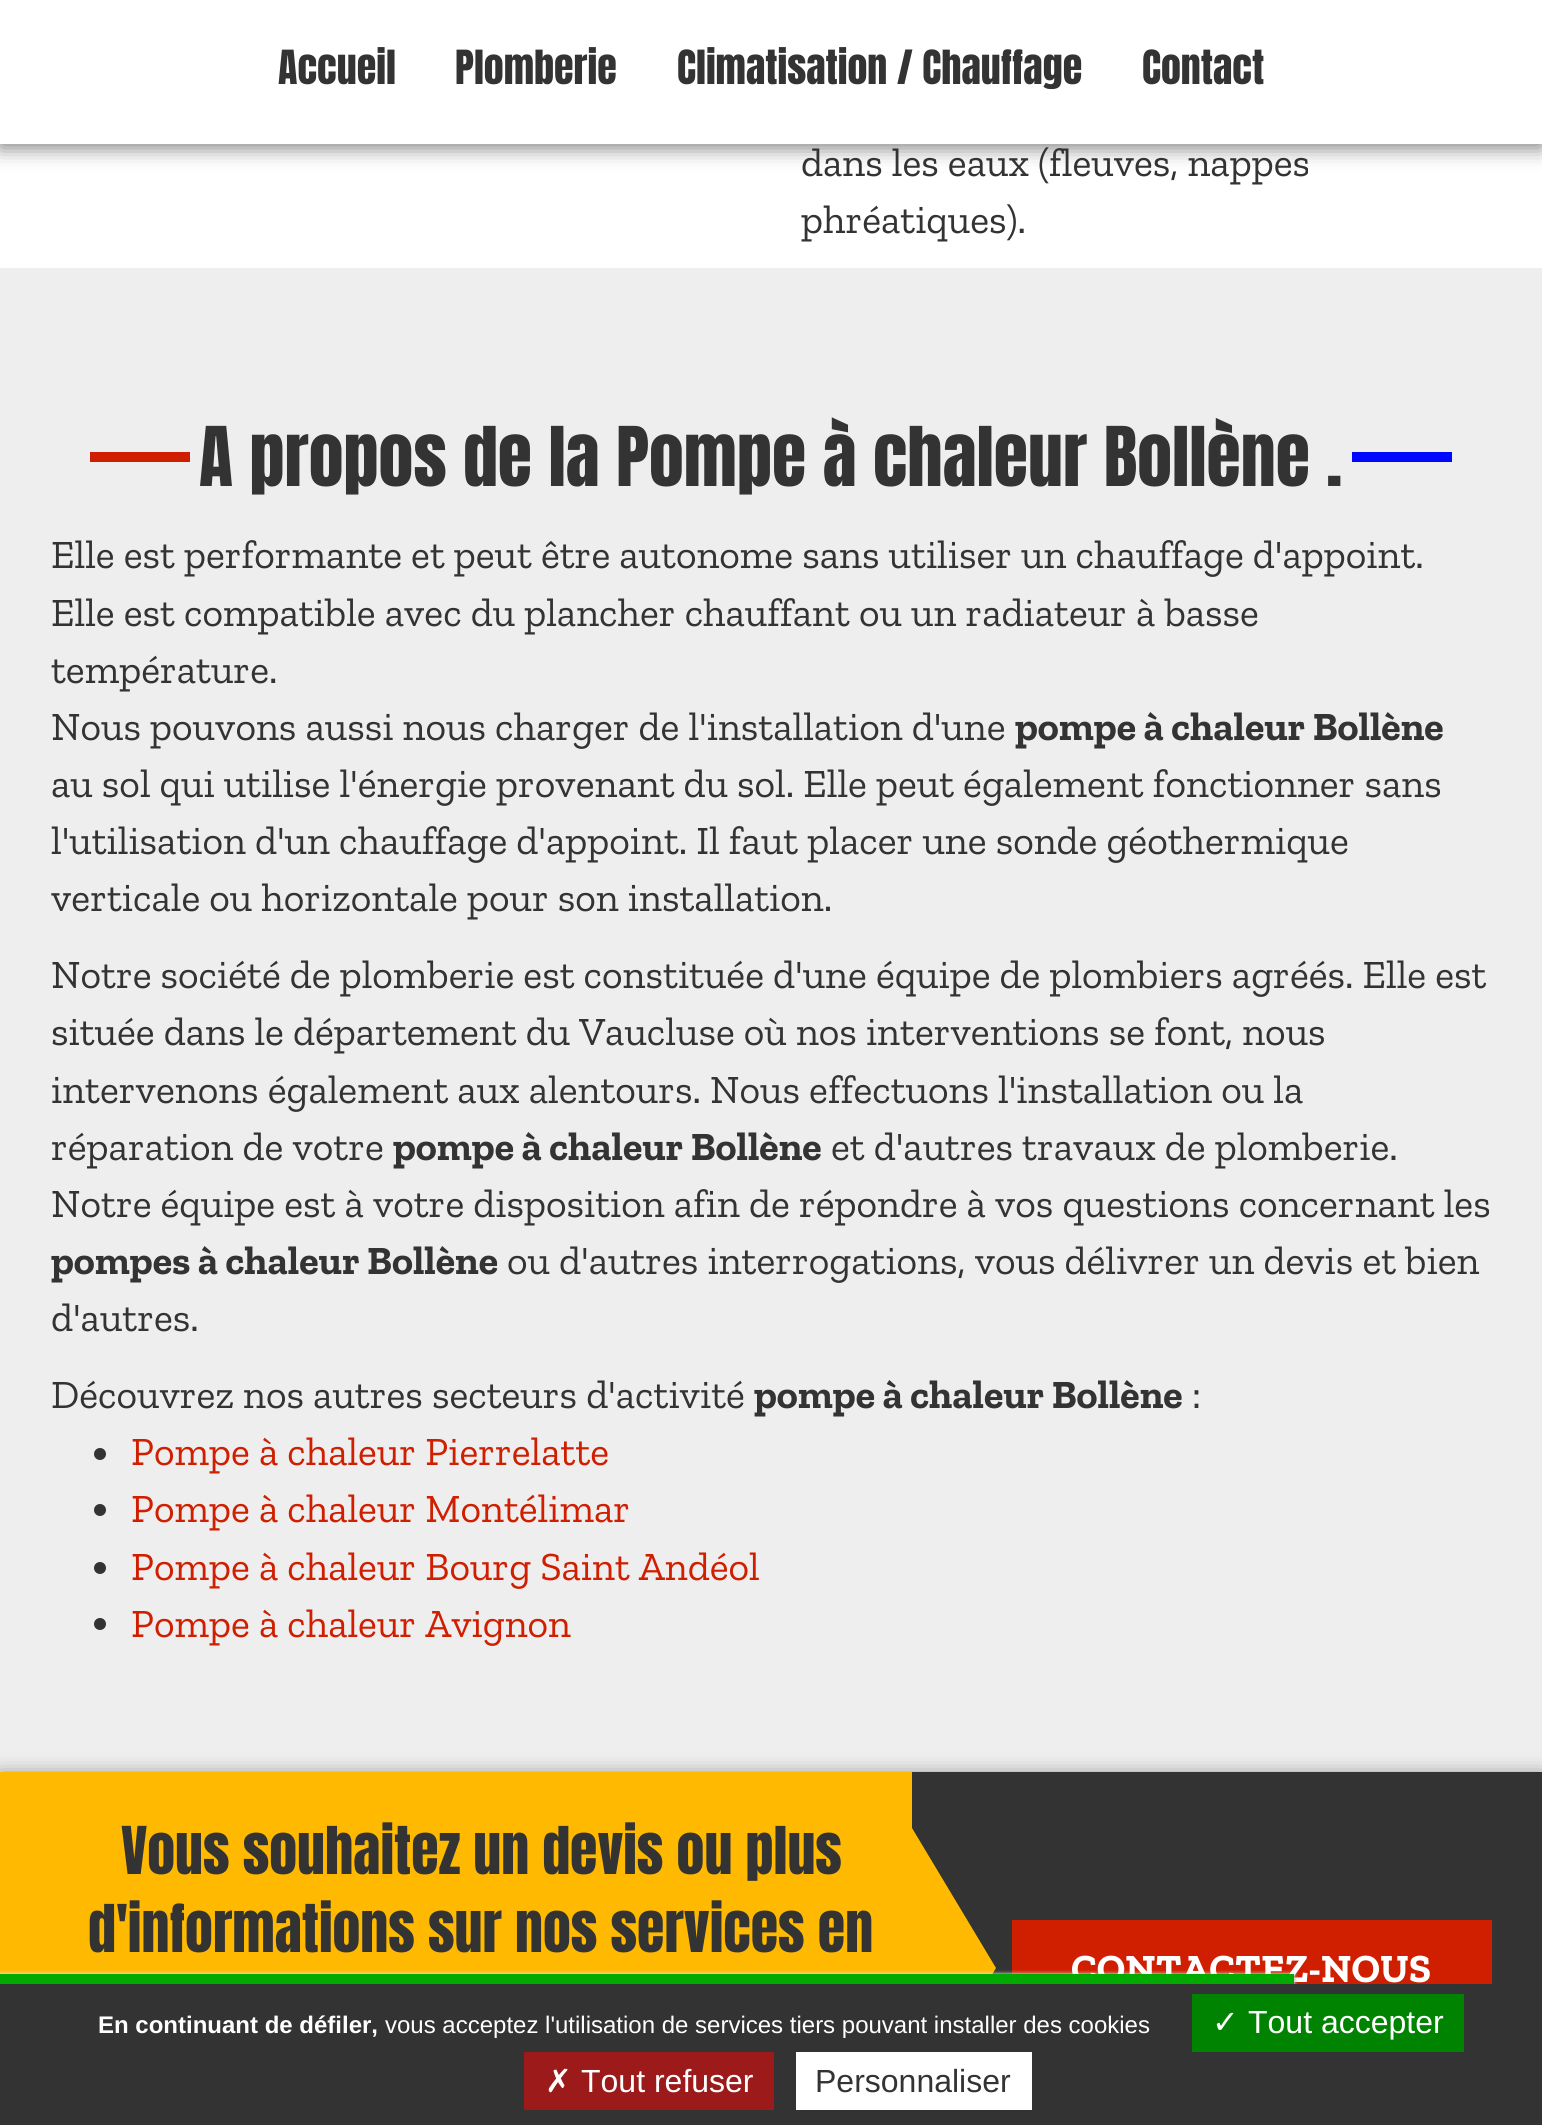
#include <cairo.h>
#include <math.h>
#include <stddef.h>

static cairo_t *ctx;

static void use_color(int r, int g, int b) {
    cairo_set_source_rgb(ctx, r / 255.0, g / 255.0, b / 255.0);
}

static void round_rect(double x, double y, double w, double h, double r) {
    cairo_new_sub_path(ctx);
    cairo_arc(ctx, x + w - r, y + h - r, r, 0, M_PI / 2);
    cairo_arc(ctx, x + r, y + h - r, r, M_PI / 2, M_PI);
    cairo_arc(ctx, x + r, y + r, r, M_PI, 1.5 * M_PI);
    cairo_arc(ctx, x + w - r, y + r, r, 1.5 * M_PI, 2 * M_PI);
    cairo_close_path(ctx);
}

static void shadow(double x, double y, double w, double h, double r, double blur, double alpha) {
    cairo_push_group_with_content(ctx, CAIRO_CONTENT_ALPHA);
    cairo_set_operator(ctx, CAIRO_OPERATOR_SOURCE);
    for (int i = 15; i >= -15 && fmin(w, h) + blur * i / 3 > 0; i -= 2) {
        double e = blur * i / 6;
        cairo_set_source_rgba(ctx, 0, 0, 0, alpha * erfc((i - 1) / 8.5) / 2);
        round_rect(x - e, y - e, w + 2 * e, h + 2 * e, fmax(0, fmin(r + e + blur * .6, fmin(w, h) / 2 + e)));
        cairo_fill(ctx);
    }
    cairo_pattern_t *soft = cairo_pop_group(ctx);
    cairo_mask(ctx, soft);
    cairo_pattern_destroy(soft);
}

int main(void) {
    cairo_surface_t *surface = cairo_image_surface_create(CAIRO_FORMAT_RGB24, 1542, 2125);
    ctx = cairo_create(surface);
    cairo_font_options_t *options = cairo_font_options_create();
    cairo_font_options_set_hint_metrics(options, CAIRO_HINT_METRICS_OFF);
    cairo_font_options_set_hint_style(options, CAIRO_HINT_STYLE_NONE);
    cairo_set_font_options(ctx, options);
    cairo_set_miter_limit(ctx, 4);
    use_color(255, 255, 255);
    cairo_paint(ctx);
    use_color(0, 0, 0);
    shadow(0, 4, 1542, 144, 0, 10, 0.5);
    use_color(255, 255, 255);
    cairo_rectangle(ctx, 0, 0, 1542, 144);
    cairo_fill(ctx);
    cairo_select_font_face(ctx, "Anton", CAIRO_FONT_SLANT_NORMAL, CAIRO_FONT_WEIGHT_NORMAL);
    cairo_set_font_size(ctx, 40);
    use_color(51, 51, 51);
    cairo_move_to(ctx, 278, 84);
    cairo_show_text(ctx, "Accueil");
    cairo_move_to(ctx, 455, 84);
    cairo_show_text(ctx, "Plomberie");
    cairo_move_to(ctx, 677, 84);
    cairo_show_text(ctx, "Climatisation / Chauffage");
    cairo_move_to(ctx, 1142, 84);
    cairo_show_text(ctx, "Contact");
    cairo_select_font_face(ctx, "Zilla Slab", CAIRO_FONT_SLANT_NORMAL, CAIRO_FONT_WEIGHT_NORMAL);
    cairo_move_to(ctx, 801, 176);
    cairo_show_text(ctx, "dans les eaux (fleuves, nappes");
    cairo_move_to(ctx, 801, 233);
    cairo_show_text(ctx, "phréatiques).");
    use_color(238, 238, 238);
    cairo_rectangle(ctx, 0, 268, 1542, 1504);
    cairo_fill(ctx);
    use_color(208, 30, 0);
    cairo_rectangle(ctx, 90, 452, 100, 10);
    cairo_fill(ctx);
    cairo_select_font_face(ctx, "Anton", CAIRO_FONT_SLANT_NORMAL, CAIRO_FONT_WEIGHT_NORMAL);
    cairo_set_font_size(ctx, 70);
    use_color(51, 51, 51);
    cairo_move_to(ctx, 199, 486);
    cairo_show_text(ctx, "A propos de la Pompe à chaleur Bollène .");
    use_color(0, 7, 255);
    cairo_rectangle(ctx, 1352, 452, 100, 10);
    cairo_fill(ctx);
    cairo_select_font_face(ctx, "Zilla Slab", CAIRO_FONT_SLANT_NORMAL, CAIRO_FONT_WEIGHT_NORMAL);
    cairo_set_font_size(ctx, 40);
    use_color(51, 51, 51);
    cairo_move_to(ctx, 51, 568);
    cairo_show_text(ctx, "Elle est performante et peut être autonome sans utiliser un chauffage d'appoint.");
    cairo_move_to(ctx, 51, 626);
    cairo_show_text(ctx, "Elle est compatible avec du plancher chauffant ou un radiateur à basse");
    cairo_move_to(ctx, 51, 683);
    cairo_show_text(ctx, "température.");
    cairo_move_to(ctx, 51, 740);
    cairo_show_text(ctx, "Nous pouvons aussi nous charger de l'installation d'une");
    cairo_select_font_face(ctx, "Zilla Slab", CAIRO_FONT_SLANT_NORMAL, CAIRO_FONT_WEIGHT_BOLD);
    cairo_move_to(ctx, 1015, 740);
    cairo_show_text(ctx, "pompe à chaleur Bollène");
    cairo_select_font_face(ctx, "Zilla Slab", CAIRO_FONT_SLANT_NORMAL, CAIRO_FONT_WEIGHT_NORMAL);
    cairo_move_to(ctx, 51, 797);
    cairo_show_text(ctx, "au sol qui utilise l'énergie provenant du sol. Elle peut également fonctionner sans");
    cairo_move_to(ctx, 51, 854);
    cairo_show_text(ctx, "l'utilisation d'un chauffage d'appoint. Il faut placer une sonde géothermique");
    cairo_move_to(ctx, 51, 911);
    cairo_show_text(ctx, "verticale ou horizontale pour son installation.");
    cairo_move_to(ctx, 51, 988);
    cairo_show_text(ctx, "Notre société de plomberie est constituée d'une équipe de plombiers agréés. Elle est");
    cairo_move_to(ctx, 51, 1045);
    cairo_show_text(ctx, "située dans le département du Vaucluse où nos interventions se font, nous");
    cairo_move_to(ctx, 51, 1103);
    cairo_show_text(ctx, "intervenons également aux alentours. Nous effectuons l'installation ou la");
    cairo_move_to(ctx, 51, 1160);
    cairo_show_text(ctx, "réparation de votre");
    cairo_select_font_face(ctx, "Zilla Slab", CAIRO_FONT_SLANT_NORMAL, CAIRO_FONT_WEIGHT_BOLD);
    cairo_move_to(ctx, 393, 1160);
    cairo_show_text(ctx, "pompe à chaleur Bollène");
    cairo_select_font_face(ctx, "Zilla Slab", CAIRO_FONT_SLANT_NORMAL, CAIRO_FONT_WEIGHT_NORMAL);
    cairo_move_to(ctx, 831, 1160);
    cairo_show_text(ctx, "et d'autres travaux de plomberie.");
    cairo_move_to(ctx, 51, 1217);
    cairo_show_text(ctx, "Notre équipe est à votre disposition afin de répondre à vos questions concernant les");
    cairo_select_font_face(ctx, "Zilla Slab", CAIRO_FONT_SLANT_NORMAL, CAIRO_FONT_WEIGHT_BOLD);
    cairo_move_to(ctx, 51, 1274);
    cairo_show_text(ctx, "pompes à chaleur Bollène");
    cairo_select_font_face(ctx, "Zilla Slab", CAIRO_FONT_SLANT_NORMAL, CAIRO_FONT_WEIGHT_NORMAL);
    cairo_move_to(ctx, 507, 1274);
    cairo_show_text(ctx, "ou d'autres interrogations, vous délivrer un devis et bien");
    cairo_move_to(ctx, 51, 1331);
    cairo_show_text(ctx, "d'autres.");
    cairo_move_to(ctx, 51, 1408);
    cairo_show_text(ctx, "Découvrez nos autres secteurs d'activité");
    cairo_select_font_face(ctx, "Zilla Slab", CAIRO_FONT_SLANT_NORMAL, CAIRO_FONT_WEIGHT_BOLD);
    cairo_move_to(ctx, 754, 1408);
    cairo_show_text(ctx, "pompe à chaleur Bollène");
    cairo_select_font_face(ctx, "Zilla Slab", CAIRO_FONT_SLANT_NORMAL, CAIRO_FONT_WEIGHT_NORMAL);
    cairo_move_to(ctx, 1192, 1408);
    cairo_show_text(ctx, ":");
    cairo_new_path(ctx);
    cairo_arc(ctx, 100, 1454, 6, 0, 2 * M_PI);
    cairo_fill(ctx);
    use_color(208, 30, 0);
    cairo_move_to(ctx, 131, 1465);
    cairo_show_text(ctx, "Pompe à chaleur Pierrelatte");
    use_color(51, 51, 51);
    cairo_new_path(ctx);
    cairo_arc(ctx, 100, 1510, 6, 0, 2 * M_PI);
    cairo_fill(ctx);
    use_color(208, 30, 0);
    cairo_move_to(ctx, 131, 1522);
    cairo_show_text(ctx, "Pompe à chaleur Montélimar");
    use_color(51, 51, 51);
    cairo_new_path(ctx);
    cairo_arc(ctx, 100, 1568, 6, 0, 2 * M_PI);
    cairo_fill(ctx);
    use_color(208, 30, 0);
    cairo_move_to(ctx, 131, 1580);
    cairo_show_text(ctx, "Pompe à chaleur Bourg Saint Andéol");
    use_color(51, 51, 51);
    cairo_new_path(ctx);
    cairo_arc(ctx, 100, 1624, 6, 0, 2 * M_PI);
    cairo_fill(ctx);
    use_color(208, 30, 0);
    cairo_move_to(ctx, 131, 1637);
    cairo_show_text(ctx, "Pompe à chaleur Avignon");
    use_color(0, 0, 0);
    shadow(0, 1776, 1542, 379, 0, 10, 0.5);
    use_color(51, 51, 51);
    cairo_rectangle(ctx, 912, 1772, 630, 212);
    cairo_fill(ctx);
    use_color(255, 185, 1);
    cairo_rectangle(ctx, 0, 1772, 52, 202);
    cairo_fill(ctx);
    cairo_save(ctx);
    cairo_rectangle(ctx, 22, 1772, 1500, 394);
    cairo_clip(ctx);
    cairo_new_path(ctx);
    cairo_move_to(ctx, 876, 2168);
    cairo_line_to(ctx, 876, 1768);
    cairo_line_to(ctx, 996, 1968);
    cairo_close_path(ctx);
    cairo_fill(ctx);
    cairo_restore(ctx);
    cairo_rectangle(ctx, 52, 1772, 860, 202);
    cairo_fill(ctx);
    cairo_select_font_face(ctx, "Anton", CAIRO_FONT_SLANT_NORMAL, CAIRO_FONT_WEIGHT_NORMAL);
    cairo_set_font_size(ctx, 56);
    use_color(51, 51, 51);
    cairo_move_to(ctx, 121, 1874);
    cairo_show_text(ctx, "Vous souhaitez un devis ou plus");
    cairo_move_to(ctx, 88, 1952);
    cairo_show_text(ctx, "d'informations sur nos services en");
    use_color(208, 30, 0);
    cairo_rectangle(ctx, 1012, 1920, 480, 64);
    cairo_fill(ctx);
    cairo_select_font_face(ctx, "Zilla Slab", CAIRO_FONT_SLANT_NORMAL, CAIRO_FONT_WEIGHT_BOLD);
    cairo_set_font_size(ctx, 40);
    use_color(255, 255, 255);
    cairo_move_to(ctx, 1071, 1982);
    cairo_show_text(ctx, "CONTACTEZ-NOUS");
    use_color(85, 85, 85);
    shadow(0, 1976, 1294, 10, 0, 2, 1);
    use_color(255, 255, 255);
    shadow(0, 1974, 1294, 10, 0, 2, 1);
    use_color(0, 170, 0);
    cairo_rectangle(ctx, 0, 1974, 1294, 10);
    cairo_fill(ctx);
    use_color(51, 51, 51);
    cairo_rectangle(ctx, 0, 1984, 1542, 141);
    cairo_fill(ctx);
    cairo_select_font_face(ctx, "Liberation Sans", CAIRO_FONT_SLANT_NORMAL, CAIRO_FONT_WEIGHT_BOLD);
    cairo_set_font_size(ctx, 24);
    use_color(255, 255, 255);
    cairo_move_to(ctx, 98, 2033);
    cairo_show_text(ctx, "En continuant de défiler,");
    cairo_select_font_face(ctx, "Liberation Sans", CAIRO_FONT_SLANT_NORMAL, CAIRO_FONT_WEIGHT_NORMAL);
    cairo_move_to(ctx, 385, 2033);
    cairo_show_text(ctx, "vous acceptez l'utilisation de services tiers pouvant installer des cookies");
    use_color(0, 131, 0);
    cairo_rectangle(ctx, 1192, 1994, 272, 58);
    cairo_fill(ctx);
    cairo_select_font_face(ctx, "DejaVu Sans", CAIRO_FONT_SLANT_NORMAL, CAIRO_FONT_WEIGHT_NORMAL);
    cairo_set_font_size(ctx, 32);
    use_color(255, 255, 255);
    cairo_move_to(ctx, 1212, 2033);
    cairo_show_text(ctx, "✓");
    cairo_select_font_face(ctx, "Liberation Sans", CAIRO_FONT_SLANT_NORMAL, CAIRO_FONT_WEIGHT_NORMAL);
    cairo_move_to(ctx, 1248, 2033);
    cairo_show_text(ctx, "Tout accepter");
    use_color(156, 26, 26);
    cairo_rectangle(ctx, 524, 2052, 250, 58);
    cairo_fill(ctx);
    cairo_select_font_face(ctx, "DejaVu Sans", CAIRO_FONT_SLANT_NORMAL, CAIRO_FONT_WEIGHT_NORMAL);
    use_color(255, 255, 255);
    cairo_move_to(ctx, 545, 2092);
    cairo_show_text(ctx, "✗");
    cairo_select_font_face(ctx, "Liberation Sans", CAIRO_FONT_SLANT_NORMAL, CAIRO_FONT_WEIGHT_NORMAL);
    cairo_move_to(ctx, 581, 2092);
    cairo_show_text(ctx, "Tout refuser");
    cairo_rectangle(ctx, 796, 2052, 236, 58);
    cairo_fill(ctx);
    use_color(51, 51, 51);
    cairo_move_to(ctx, 815, 2092);
    cairo_show_text(ctx, "Personnaliser");
    cairo_surface_write_to_png(surface, "result.png");
    cairo_font_options_destroy(options);
    cairo_destroy(ctx);
    cairo_surface_destroy(surface);
    return 0;
}
